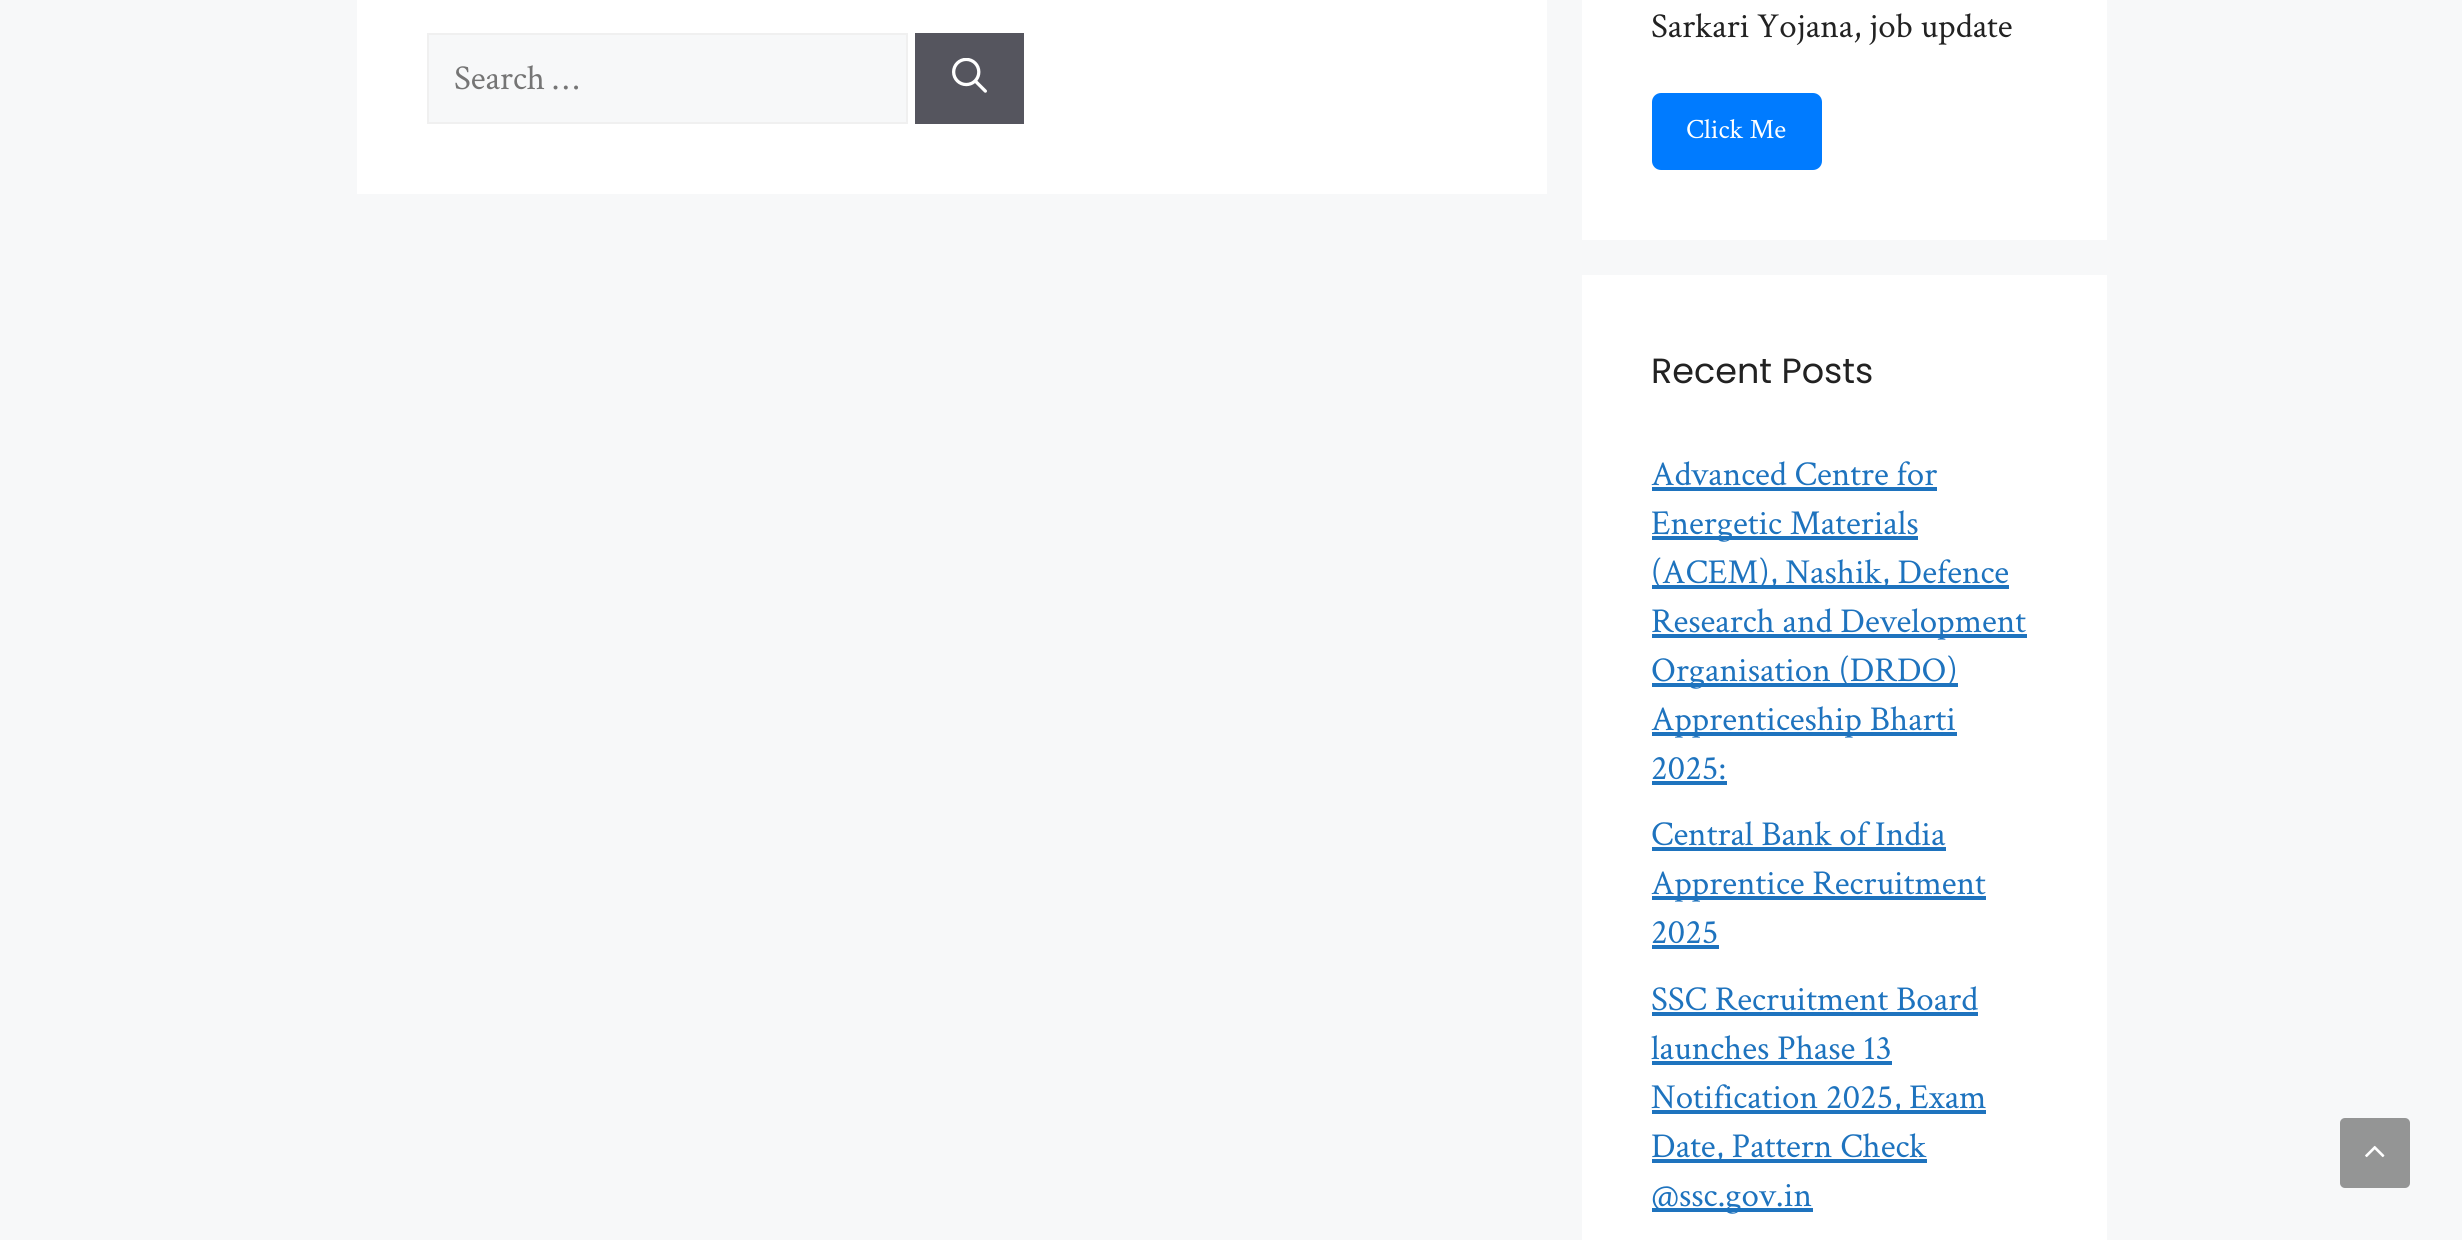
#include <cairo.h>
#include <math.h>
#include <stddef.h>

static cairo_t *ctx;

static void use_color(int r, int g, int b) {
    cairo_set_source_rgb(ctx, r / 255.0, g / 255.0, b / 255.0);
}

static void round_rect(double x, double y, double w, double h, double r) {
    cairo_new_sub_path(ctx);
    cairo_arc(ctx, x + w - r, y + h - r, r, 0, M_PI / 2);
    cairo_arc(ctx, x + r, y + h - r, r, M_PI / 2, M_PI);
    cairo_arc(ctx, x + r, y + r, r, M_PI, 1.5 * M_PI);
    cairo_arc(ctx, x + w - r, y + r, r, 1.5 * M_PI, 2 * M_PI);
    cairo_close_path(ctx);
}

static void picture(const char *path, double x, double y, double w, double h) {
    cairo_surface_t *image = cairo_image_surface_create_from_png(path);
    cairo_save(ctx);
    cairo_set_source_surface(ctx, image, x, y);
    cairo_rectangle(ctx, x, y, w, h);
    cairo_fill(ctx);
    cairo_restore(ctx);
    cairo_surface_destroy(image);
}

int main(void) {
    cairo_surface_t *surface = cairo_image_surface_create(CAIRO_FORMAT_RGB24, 2462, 1240);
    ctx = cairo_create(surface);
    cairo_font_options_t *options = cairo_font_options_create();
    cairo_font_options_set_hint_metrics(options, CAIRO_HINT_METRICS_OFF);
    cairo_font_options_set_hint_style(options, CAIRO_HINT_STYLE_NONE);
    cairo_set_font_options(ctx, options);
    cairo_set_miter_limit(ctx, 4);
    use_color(247, 248, 249);
    cairo_paint(ctx);
    use_color(255, 255, 255);
    cairo_rectangle(ctx, 357, 0, 1190, 194);
    cairo_fill(ctx);
    use_color(247, 248, 249);
    cairo_rectangle(ctx, 428, 34, 479, 89);
    cairo_fill_preserve(ctx);
    use_color(240, 240, 240);
    cairo_stroke(ctx);
    cairo_select_font_face(ctx, "Crimson Text", CAIRO_FONT_SLANT_NORMAL, CAIRO_FONT_WEIGHT_NORMAL);
    cairo_set_font_size(ctx, 35);
    use_color(117, 117, 117);
    cairo_move_to(ctx, 454, 89);
    cairo_show_text(ctx, "Search …");
    use_color(85, 85, 94);
    cairo_rectangle(ctx, 915, 33, 109, 91);
    cairo_fill(ctx);
    picture("img1.png", 952, 58, 35, 35);
    use_color(255, 255, 255);
    cairo_rectangle(ctx, 1582, 0, 525, 240);
    cairo_fill(ctx);
    use_color(34, 34, 34);
    cairo_move_to(ctx, 1651, 37);
    cairo_show_text(ctx, "Sarkari Yojana, job update");
    use_color(0, 123, 255);
    round_rect(1652, 93, 170, 77, 9);
    cairo_fill(ctx);
    cairo_set_font_size(ctx, 28);
    use_color(255, 255, 255);
    cairo_move_to(ctx, 1686, 138);
    cairo_show_text(ctx, "Click Me");
    cairo_rectangle(ctx, 1582, 275, 525, 965);
    cairo_fill(ctx);
    cairo_select_font_face(ctx, "Poppins", CAIRO_FONT_SLANT_NORMAL, CAIRO_FONT_WEIGHT_NORMAL);
    cairo_set_font_size(ctx, 35);
    use_color(34, 34, 34);
    cairo_move_to(ctx, 1651, 383);
    cairo_show_text(ctx, "Recent Posts");
    cairo_select_font_face(ctx, "Crimson Text", CAIRO_FONT_SLANT_NORMAL, CAIRO_FONT_WEIGHT_NORMAL);
    use_color(30, 115, 190);
    cairo_move_to(ctx, 1651, 485);
    cairo_show_text(ctx, "Advanced Centre for");
    cairo_rectangle(ctx, 1652, 487, 285, 4);
    cairo_fill(ctx);
    cairo_rectangle(ctx, 1652, 536, 266, 4);
    cairo_fill(ctx);
    cairo_move_to(ctx, 1651, 534);
    cairo_show_text(ctx, "Energetic Materials");
    cairo_rectangle(ctx, 1652, 585, 357, 4);
    cairo_fill(ctx);
    cairo_move_to(ctx, 1651, 583);
    cairo_show_text(ctx, "(ACEM), Nashik, Defence");
    cairo_rectangle(ctx, 1652, 634, 375, 4);
    cairo_fill(ctx);
    cairo_move_to(ctx, 1651, 632);
    cairo_show_text(ctx, "Research and Development");
    cairo_rectangle(ctx, 1652, 683, 306, 4);
    cairo_fill(ctx);
    cairo_move_to(ctx, 1651, 681);
    cairo_show_text(ctx, "Organisation (DRDO)");
    cairo_rectangle(ctx, 1652, 732, 305, 4);
    cairo_fill(ctx);
    cairo_move_to(ctx, 1651, 730);
    cairo_show_text(ctx, "Apprenticeship Bharti");
    cairo_move_to(ctx, 1651, 779);
    cairo_show_text(ctx, "2025:");
    cairo_rectangle(ctx, 1652, 781, 75, 4);
    cairo_fill(ctx);
    cairo_move_to(ctx, 1651, 845);
    cairo_show_text(ctx, "Central Bank of India");
    cairo_rectangle(ctx, 1652, 847, 294, 4);
    cairo_fill(ctx);
    cairo_rectangle(ctx, 1652, 896, 334, 4);
    cairo_fill(ctx);
    cairo_move_to(ctx, 1651, 894);
    cairo_show_text(ctx, "Apprentice Recruitment");
    cairo_move_to(ctx, 1651, 943);
    cairo_show_text(ctx, "2025");
    cairo_rectangle(ctx, 1652, 945, 67, 4);
    cairo_fill(ctx);
    cairo_move_to(ctx, 1651, 1010);
    cairo_show_text(ctx, "SSC Recruitment Board");
    cairo_rectangle(ctx, 1652, 1012, 326, 4);
    cairo_fill(ctx);
    cairo_move_to(ctx, 1651, 1059);
    cairo_show_text(ctx, "launches Phase 13");
    cairo_rectangle(ctx, 1652, 1061, 240, 4);
    cairo_fill(ctx);
    cairo_rectangle(ctx, 1652, 1110, 334, 4);
    cairo_fill(ctx);
    cairo_move_to(ctx, 1651, 1108);
    cairo_show_text(ctx, "Notification 2025, Exam");
    cairo_rectangle(ctx, 1652, 1159, 275, 4);
    cairo_fill(ctx);
    cairo_move_to(ctx, 1651, 1157);
    cairo_show_text(ctx, "Date, Pattern Check");
    cairo_rectangle(ctx, 1652, 1208, 161, 4);
    cairo_fill(ctx);
    cairo_move_to(ctx, 1651, 1206);
    cairo_show_text(ctx, "@ssc.gov.in");
    use_color(148, 149, 149);
    round_rect(2340, 1118, 70, 70, 5);
    cairo_fill(ctx);
    picture("img2.png", 2365, 1145, 20, 13);
    cairo_surface_write_to_png(surface, "result.png");
    cairo_font_options_destroy(options);
    cairo_destroy(ctx);
    cairo_surface_destroy(surface);
    return 0;
}
